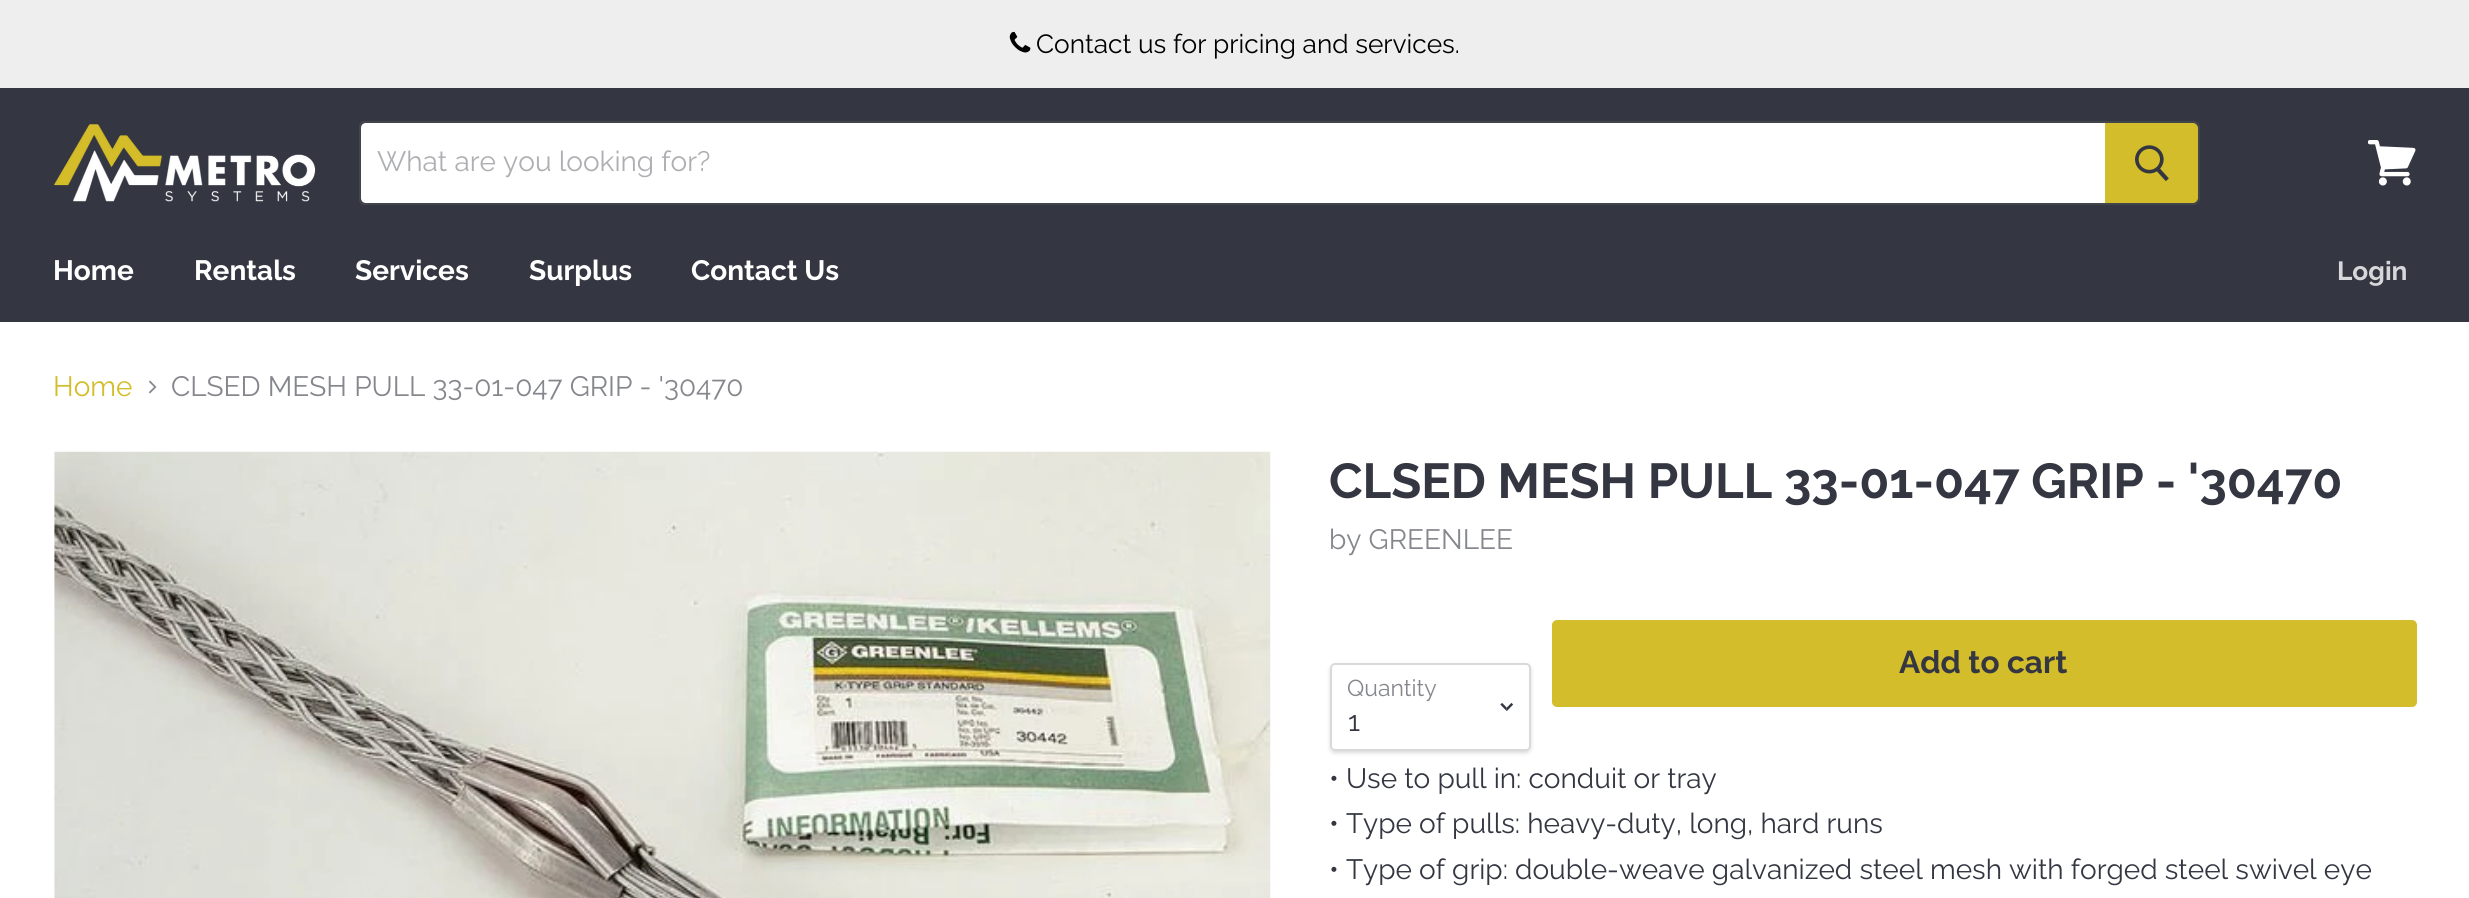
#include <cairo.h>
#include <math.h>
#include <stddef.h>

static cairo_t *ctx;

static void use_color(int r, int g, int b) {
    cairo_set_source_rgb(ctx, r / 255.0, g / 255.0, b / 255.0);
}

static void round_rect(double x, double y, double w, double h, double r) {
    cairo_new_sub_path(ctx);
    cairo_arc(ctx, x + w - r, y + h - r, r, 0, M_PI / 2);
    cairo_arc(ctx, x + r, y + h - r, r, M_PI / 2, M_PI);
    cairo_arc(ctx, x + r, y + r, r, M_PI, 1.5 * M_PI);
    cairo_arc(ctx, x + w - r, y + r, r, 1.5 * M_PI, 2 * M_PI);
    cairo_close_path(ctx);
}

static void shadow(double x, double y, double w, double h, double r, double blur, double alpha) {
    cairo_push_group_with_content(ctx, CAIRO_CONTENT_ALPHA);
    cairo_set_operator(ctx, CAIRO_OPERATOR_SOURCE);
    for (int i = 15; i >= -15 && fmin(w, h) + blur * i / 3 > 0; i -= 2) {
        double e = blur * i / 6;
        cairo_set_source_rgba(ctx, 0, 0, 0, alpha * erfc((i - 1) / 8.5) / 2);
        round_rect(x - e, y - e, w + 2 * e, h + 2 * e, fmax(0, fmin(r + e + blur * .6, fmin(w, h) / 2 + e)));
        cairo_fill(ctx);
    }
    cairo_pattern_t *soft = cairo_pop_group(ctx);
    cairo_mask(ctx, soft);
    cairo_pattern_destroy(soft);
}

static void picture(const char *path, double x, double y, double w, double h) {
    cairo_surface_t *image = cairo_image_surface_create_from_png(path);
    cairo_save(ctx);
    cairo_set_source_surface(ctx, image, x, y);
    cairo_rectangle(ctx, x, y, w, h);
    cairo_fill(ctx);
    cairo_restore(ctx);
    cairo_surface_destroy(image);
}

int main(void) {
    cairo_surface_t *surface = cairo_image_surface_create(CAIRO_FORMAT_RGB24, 2469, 898);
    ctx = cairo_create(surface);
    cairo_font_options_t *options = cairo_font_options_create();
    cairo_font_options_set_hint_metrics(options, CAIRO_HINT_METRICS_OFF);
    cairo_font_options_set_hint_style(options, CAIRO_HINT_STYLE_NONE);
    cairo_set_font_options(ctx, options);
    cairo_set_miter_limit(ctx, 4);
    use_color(255, 255, 255);
    cairo_paint(ctx);
    use_color(52, 55, 65);
    cairo_rectangle(ctx, 0, 88, 2469, 234);
    cairo_fill(ctx);
    use_color(238, 238, 238);
    cairo_rectangle(ctx, 0, 0, 2469, 88);
    cairo_fill(ctx);
    picture("img1.png", 1009, 31, 22, 22);
    cairo_select_font_face(ctx, "Raleway", CAIRO_FONT_SLANT_NORMAL, CAIRO_FONT_WEIGHT_NORMAL);
    cairo_set_font_size(ctx, 26.25);
    use_color(0, 0, 0);
    cairo_move_to(ctx, 1036, 53);
    cairo_show_text(ctx, "Contact us for pricing and services.");
    picture("img2.png", 54, 124, 262, 78);
    cairo_new_path(ctx);
    cairo_move_to(ctx, 364, 122);
    cairo_line_to(ctx, 2193, 122);
    cairo_curve_to(ctx, 2196.5, 122, 2199, 124.5, 2199, 128);
    cairo_line_to(ctx, 2199, 198);
    cairo_curve_to(ctx, 2199, 201.5, 2196.5, 204, 2193, 204);
    cairo_line_to(ctx, 364, 204);
    cairo_curve_to(ctx, 362, 204, 360, 202, 360, 200);
    cairo_line_to(ctx, 360, 126);
    cairo_curve_to(ctx, 360, 124, 362, 122, 364, 122);
    cairo_close_path(ctx);
    cairo_set_source_rgba(ctx, 0.498, 0.498, 0.498, 0.2);
    cairo_stroke(ctx);
    use_color(255, 255, 255);
    cairo_new_path(ctx);
    cairo_move_to(ctx, 366, 123);
    cairo_line_to(ctx, 2105, 123);
    cairo_line_to(ctx, 2105, 203);
    cairo_line_to(ctx, 366, 203);
    cairo_curve_to(ctx, 363, 203, 361, 201, 361, 198);
    cairo_line_to(ctx, 361, 128);
    cairo_curve_to(ctx, 361, 125, 363, 123, 366, 123);
    cairo_close_path(ctx);
    cairo_fill(ctx);
    cairo_set_font_size(ctx, 28);
    use_color(174, 175, 179);
    cairo_move_to(ctx, 377, 171);
    cairo_show_text(ctx, "What are you looking for?");
    use_color(212, 189, 43);
    cairo_new_path(ctx);
    cairo_move_to(ctx, 2106, 124);
    cairo_line_to(ctx, 2193, 124);
    cairo_curve_to(ctx, 2195, 124, 2197, 126, 2197, 128);
    cairo_line_to(ctx, 2197, 198);
    cairo_curve_to(ctx, 2197, 200, 2195, 202, 2193, 202);
    cairo_line_to(ctx, 2106, 202);
    cairo_close_path(ctx);
    cairo_fill_preserve(ctx);
    cairo_stroke(ctx);
    picture("img3.png", 2135, 145, 34, 37);
    picture("img4.png", 2368, 140, 48, 46);
    cairo_select_font_face(ctx, "Raleway", CAIRO_FONT_SLANT_NORMAL, CAIRO_FONT_WEIGHT_BOLD);
    use_color(255, 255, 255);
    cairo_move_to(ctx, 53, 280);
    cairo_show_text(ctx, "Home");
    cairo_move_to(ctx, 194, 280);
    cairo_show_text(ctx, "Rentals");
    cairo_move_to(ctx, 355, 280);
    cairo_show_text(ctx, "Services");
    cairo_move_to(ctx, 529, 280);
    cairo_show_text(ctx, "Surplus");
    cairo_move_to(ctx, 691, 280);
    cairo_show_text(ctx, "Contact Us");
    cairo_set_font_size(ctx, 26.25);
    use_color(214, 215, 217);
    cairo_move_to(ctx, 2337, 280);
    cairo_show_text(ctx, "Login");
    cairo_select_font_face(ctx, "Raleway", CAIRO_FONT_SLANT_NORMAL, CAIRO_FONT_WEIGHT_NORMAL);
    cairo_set_font_size(ctx, 28);
    use_color(212, 189, 43);
    cairo_move_to(ctx, 53, 396);
    cairo_show_text(ctx, "Home");
    picture("img5.png", 148, 380, 9, 14);
    use_color(133, 135, 141);
    cairo_move_to(ctx, 171, 396);
    cairo_show_text(ctx, "CLSED MESH PULL 33-01-047 GRIP - '30470");
    picture("img6.png", 54, 451, 1217, 447);
    cairo_select_font_face(ctx, "Raleway", CAIRO_FONT_SLANT_NORMAL, CAIRO_FONT_WEIGHT_BOLD);
    cairo_set_font_size(ctx, 49);
    use_color(52, 55, 65);
    cairo_move_to(ctx, 1329, 498);
    cairo_show_text(ctx, "CLSED MESH PULL 33-01-047 GRIP - '30470");
    cairo_select_font_face(ctx, "Raleway", CAIRO_FONT_SLANT_NORMAL, CAIRO_FONT_WEIGHT_NORMAL);
    cairo_set_font_size(ctx, 28);
    use_color(133, 135, 141);
    cairo_move_to(ctx, 1329, 549);
    cairo_show_text(ctx, "by GREENLEE");
    use_color(212, 189, 43);
    round_rect(1553, 621, 863, 85, 4);
    cairo_fill_preserve(ctx);
    cairo_stroke(ctx);
    cairo_select_font_face(ctx, "Raleway", CAIRO_FONT_SLANT_NORMAL, CAIRO_FONT_WEIGHT_BOLD);
    cairo_set_font_size(ctx, 31.5);
    use_color(52, 55, 65);
    cairo_move_to(ctx, 1899, 673);
    cairo_show_text(ctx, "Add to cart");
    cairo_save(ctx);
    cairo_set_fill_rule(ctx, CAIRO_FILL_RULE_EVEN_ODD);
    cairo_new_path(ctx);
    cairo_move_to(ctx, 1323, 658);
    cairo_line_to(ctx, 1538, 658);
    cairo_line_to(ctx, 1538, 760);
    cairo_line_to(ctx, 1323, 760);
    cairo_close_path(ctx);
    cairo_move_to(ctx, 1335, 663);
    cairo_line_to(ctx, 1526, 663);
    cairo_curve_to(ctx, 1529, 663, 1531, 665, 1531, 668);
    cairo_line_to(ctx, 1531, 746);
    cairo_curve_to(ctx, 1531, 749, 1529, 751, 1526, 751);
    cairo_line_to(ctx, 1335, 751);
    cairo_curve_to(ctx, 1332, 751, 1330, 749, 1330, 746);
    cairo_line_to(ctx, 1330, 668);
    cairo_curve_to(ctx, 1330, 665, 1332, 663, 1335, 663);
    cairo_close_path(ctx);
    cairo_clip(ctx);
    use_color(0, 0, 0);
    shadow(1330, 665, 201, 88, 5, 2, 0.15);
    cairo_restore(ctx);
    round_rect(1331, 664, 199, 86, 4);
    cairo_set_source_rgba(ctx, 0.498, 0.498, 0.498, 0.3);
    cairo_stroke(ctx);
    cairo_select_font_face(ctx, "Raleway", CAIRO_FONT_SLANT_NORMAL, CAIRO_FONT_WEIGHT_NORMAL);
    cairo_set_font_size(ctx, 23);
    use_color(133, 135, 141);
    cairo_move_to(ctx, 1347, 696);
    cairo_show_text(ctx, "Quantity");
    picture("img7.png", 1500, 702, 14, 10);
    cairo_set_font_size(ctx, 28);
    use_color(52, 55, 65);
    cairo_move_to(ctx, 1348, 731);
    cairo_show_text(ctx, "1");
    cairo_move_to(ctx, 1329, 788);
    cairo_show_text(ctx, "• Use to pull in: conduit or tray");
    cairo_move_to(ctx, 1329, 833);
    cairo_show_text(ctx, "• Type of pulls: heavy-duty, long, hard runs");
    cairo_move_to(ctx, 1329, 879);
    cairo_show_text(ctx, "• Type of grip: double-weave galvanized steel mesh with forged steel swivel eye");
    cairo_surface_write_to_png(surface, "result.png");
    cairo_font_options_destroy(options);
    cairo_destroy(ctx);
    cairo_surface_destroy(surface);
    return 0;
}
